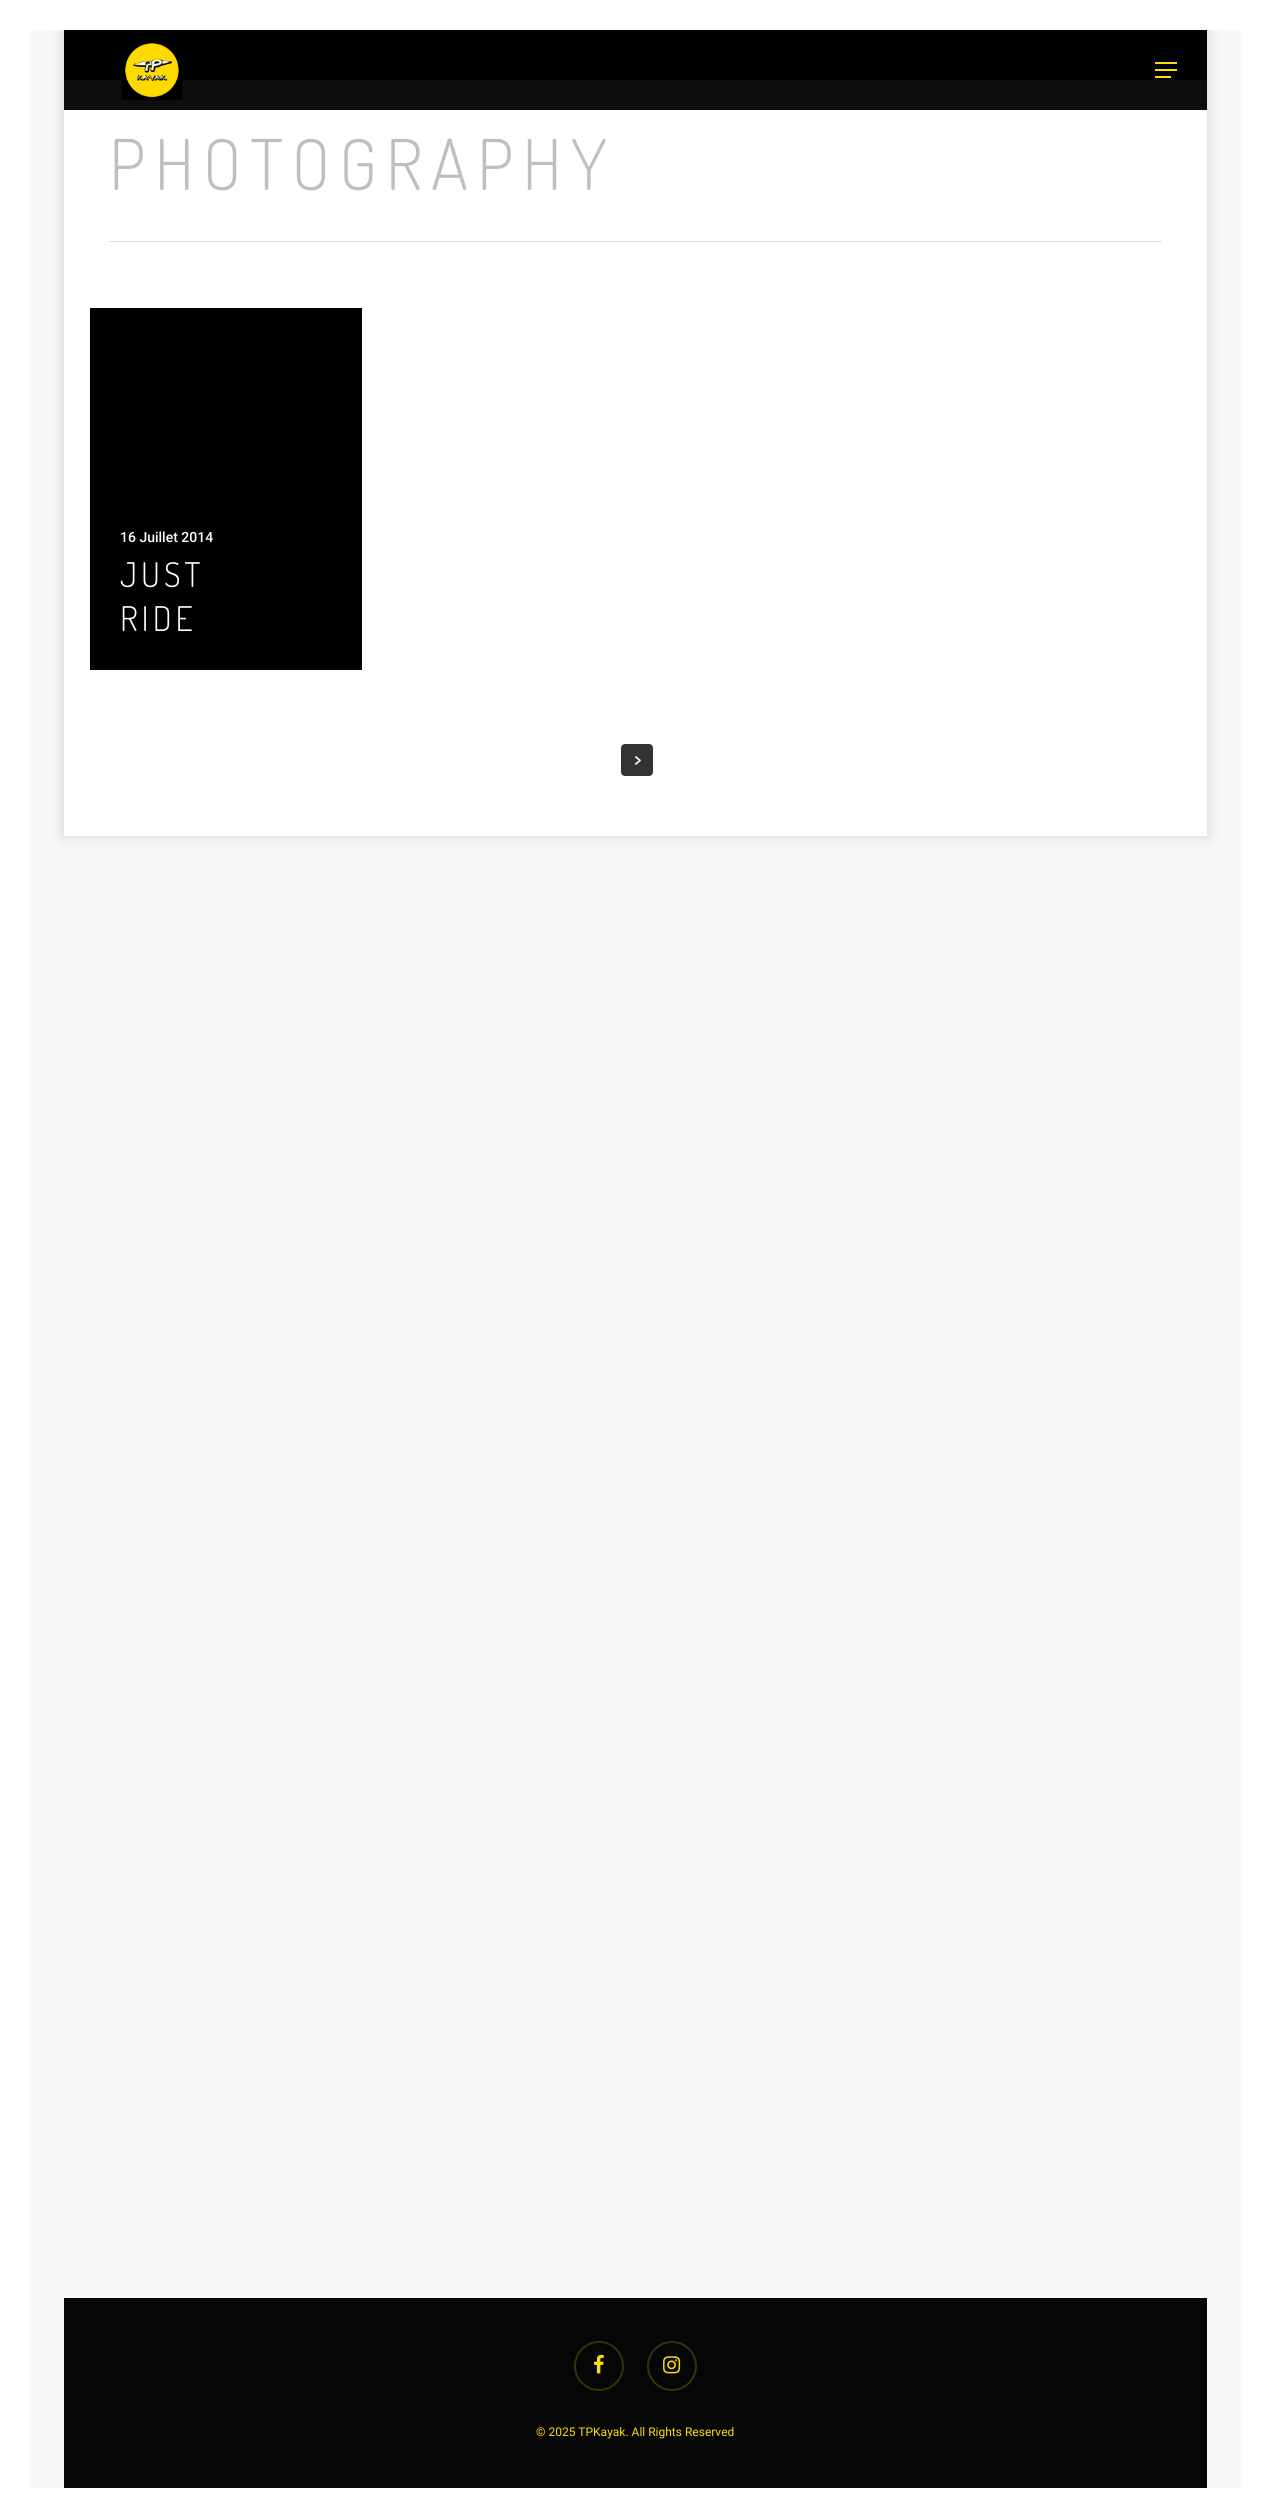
#include <cairo.h>
#include <math.h>
#include <stddef.h>

static cairo_t *ctx;

static void use_color(int r, int g, int b) {
    cairo_set_source_rgb(ctx, r / 255.0, g / 255.0, b / 255.0);
}

static void spaced_text(double x, double y, const char *s, double letter, double word) {
    cairo_move_to(ctx, x, y);
    while (*s) {
        char ch[5] = {0};
        int n = 0;
        do ch[n++] = *s++; while ((*s & 0xC0) == 0x80);
        cairo_show_text(ctx, ch);
        cairo_rel_move_to(ctx, letter + word * (*ch == ' '), 0);
    }
}

static void round_rect(double x, double y, double w, double h, double r) {
    cairo_new_sub_path(ctx);
    cairo_arc(ctx, x + w - r, y + h - r, r, 0, M_PI / 2);
    cairo_arc(ctx, x + r, y + h - r, r, M_PI / 2, M_PI);
    cairo_arc(ctx, x + r, y + r, r, M_PI, 1.5 * M_PI);
    cairo_arc(ctx, x + w - r, y + r, r, 1.5 * M_PI, 2 * M_PI);
    cairo_close_path(ctx);
}

static void shadow(double x, double y, double w, double h, double r, double blur, double alpha) {
    cairo_push_group_with_content(ctx, CAIRO_CONTENT_ALPHA);
    cairo_set_operator(ctx, CAIRO_OPERATOR_SOURCE);
    for (int i = 15; i >= -15 && fmin(w, h) + blur * i / 3 > 0; i -= 2) {
        double e = blur * i / 6;
        cairo_set_source_rgba(ctx, 0, 0, 0, alpha * erfc((i - 1) / 8.5) / 2);
        round_rect(x - e, y - e, w + 2 * e, h + 2 * e, fmax(0, fmin(r + e + blur * .6, fmin(w, h) / 2 + e)));
        cairo_fill(ctx);
    }
    cairo_pattern_t *soft = cairo_pop_group(ctx);
    cairo_mask(ctx, soft);
    cairo_pattern_destroy(soft);
}

static void picture(const char *path, double x, double y, double w, double h) {
    cairo_surface_t *image = cairo_image_surface_create_from_png(path);
    cairo_save(ctx);
    cairo_set_source_surface(ctx, image, x, y);
    cairo_rectangle(ctx, x, y, w, h);
    cairo_fill(ctx);
    cairo_restore(ctx);
    cairo_surface_destroy(image);
}

int main(void) {
    cairo_surface_t *surface = cairo_image_surface_create(CAIRO_FORMAT_RGB24, 1271, 2518);
    ctx = cairo_create(surface);
    cairo_font_options_t *options = cairo_font_options_create();
    cairo_font_options_set_hint_metrics(options, CAIRO_HINT_METRICS_OFF);
    cairo_font_options_set_hint_style(options, CAIRO_HINT_STYLE_NONE);
    cairo_set_font_options(ctx, options);
    cairo_set_miter_limit(ctx, 4);
    use_color(248, 248, 248);
    cairo_paint(ctx);
    use_color(255, 255, 255);
    cairo_rectangle(ctx, 0, 0, 30, 2518);
    cairo_fill(ctx);
    use_color(0, 0, 0);
    shadow(64, 0, 1143, 836, 0, 7.5, 0.15);
    use_color(255, 255, 255);
    cairo_rectangle(ctx, 30, 0, 1211, 30);
    cairo_fill(ctx);
    cairo_rectangle(ctx, 1241, 0, 30, 2488);
    cairo_fill(ctx);
    use_color(0, 0, 0);
    cairo_rectangle(ctx, 64, 30, 1143, 50);
    cairo_fill(ctx);
    use_color(13, 13, 13);
    cairo_rectangle(ctx, 64, 80, 1143, 30);
    cairo_fill(ctx);
    picture("img1.png", 122, 43, 60, 57);
    use_color(253, 220, 5);
    cairo_rectangle(ctx, 1155, 62, 22, 2);
    cairo_fill(ctx);
    cairo_rectangle(ctx, 1155, 76, 16, 2);
    cairo_fill(ctx);
    cairo_rectangle(ctx, 1155, 69, 22, 2);
    cairo_fill(ctx);
    use_color(255, 255, 255);
    cairo_rectangle(ctx, 64, 110, 1143, 726);
    cairo_fill(ctx);
    use_color(221, 221, 221);
    cairo_rectangle(ctx, 109, 241, 1053, 1);
    cairo_fill(ctx);
    cairo_select_font_face(ctx, "Dosis Light", CAIRO_FONT_SLANT_NORMAL, CAIRO_FONT_WEIGHT_NORMAL);
    cairo_set_font_size(ctx, 70);
    use_color(191, 191, 191);
    spaced_text(109, 190, "PHOTOGRAPHY", 9, 0);
    use_color(0, 0, 0);
    cairo_rectangle(ctx, 90, 308, 272, 362);
    cairo_fill(ctx);
    cairo_select_font_face(ctx, "Roboto Medium", CAIRO_FONT_SLANT_NORMAL, CAIRO_FONT_WEIGHT_NORMAL);
    cairo_set_font_size(ctx, 14);
    use_color(255, 255, 255);
    cairo_move_to(ctx, 120, 542);
    cairo_show_text(ctx, "16 Juillet 2014");
    cairo_select_font_face(ctx, "Dosis Light", CAIRO_FONT_SLANT_NORMAL, CAIRO_FONT_WEIGHT_NORMAL);
    cairo_set_font_size(ctx, 34);
    spaced_text(120, 587, "JUST", 4, 0);
    spaced_text(120, 631, "RIDE", 4, 0);
    use_color(51, 51, 51);
    round_rect(621, 744, 32, 32, 4);
    cairo_fill(ctx);
    picture("img2.png", 634, 756, 7, 9);
    use_color(6, 6, 6);
    cairo_rectangle(ctx, 64, 2298, 1143, 190);
    cairo_fill(ctx);
    picture("img3.png", 594, 2354, 10, 20);
    cairo_arc(ctx, 599, 2366, 24, 0, 2 * M_PI);
    use_color(55, 49, 6);
    cairo_stroke(ctx);
    picture("img4.png", 663, 2356, 18, 18);
    cairo_arc(ctx, 672, 2366, 24, 0, 2 * M_PI);
    cairo_stroke(ctx);
    cairo_select_font_face(ctx, "Roboto", CAIRO_FONT_SLANT_NORMAL, CAIRO_FONT_WEIGHT_NORMAL);
    cairo_set_font_size(ctx, 12);
    use_color(253, 220, 5);
    cairo_move_to(ctx, 536, 2436);
    cairo_show_text(ctx, "© 2025 TPKayak. All Rights Reserved");
    use_color(255, 255, 255);
    cairo_rectangle(ctx, 30, 2488, 1241, 30);
    cairo_fill(ctx);
    cairo_surface_write_to_png(surface, "result.png");
    cairo_font_options_destroy(options);
    cairo_destroy(ctx);
    cairo_surface_destroy(surface);
    return 0;
}
